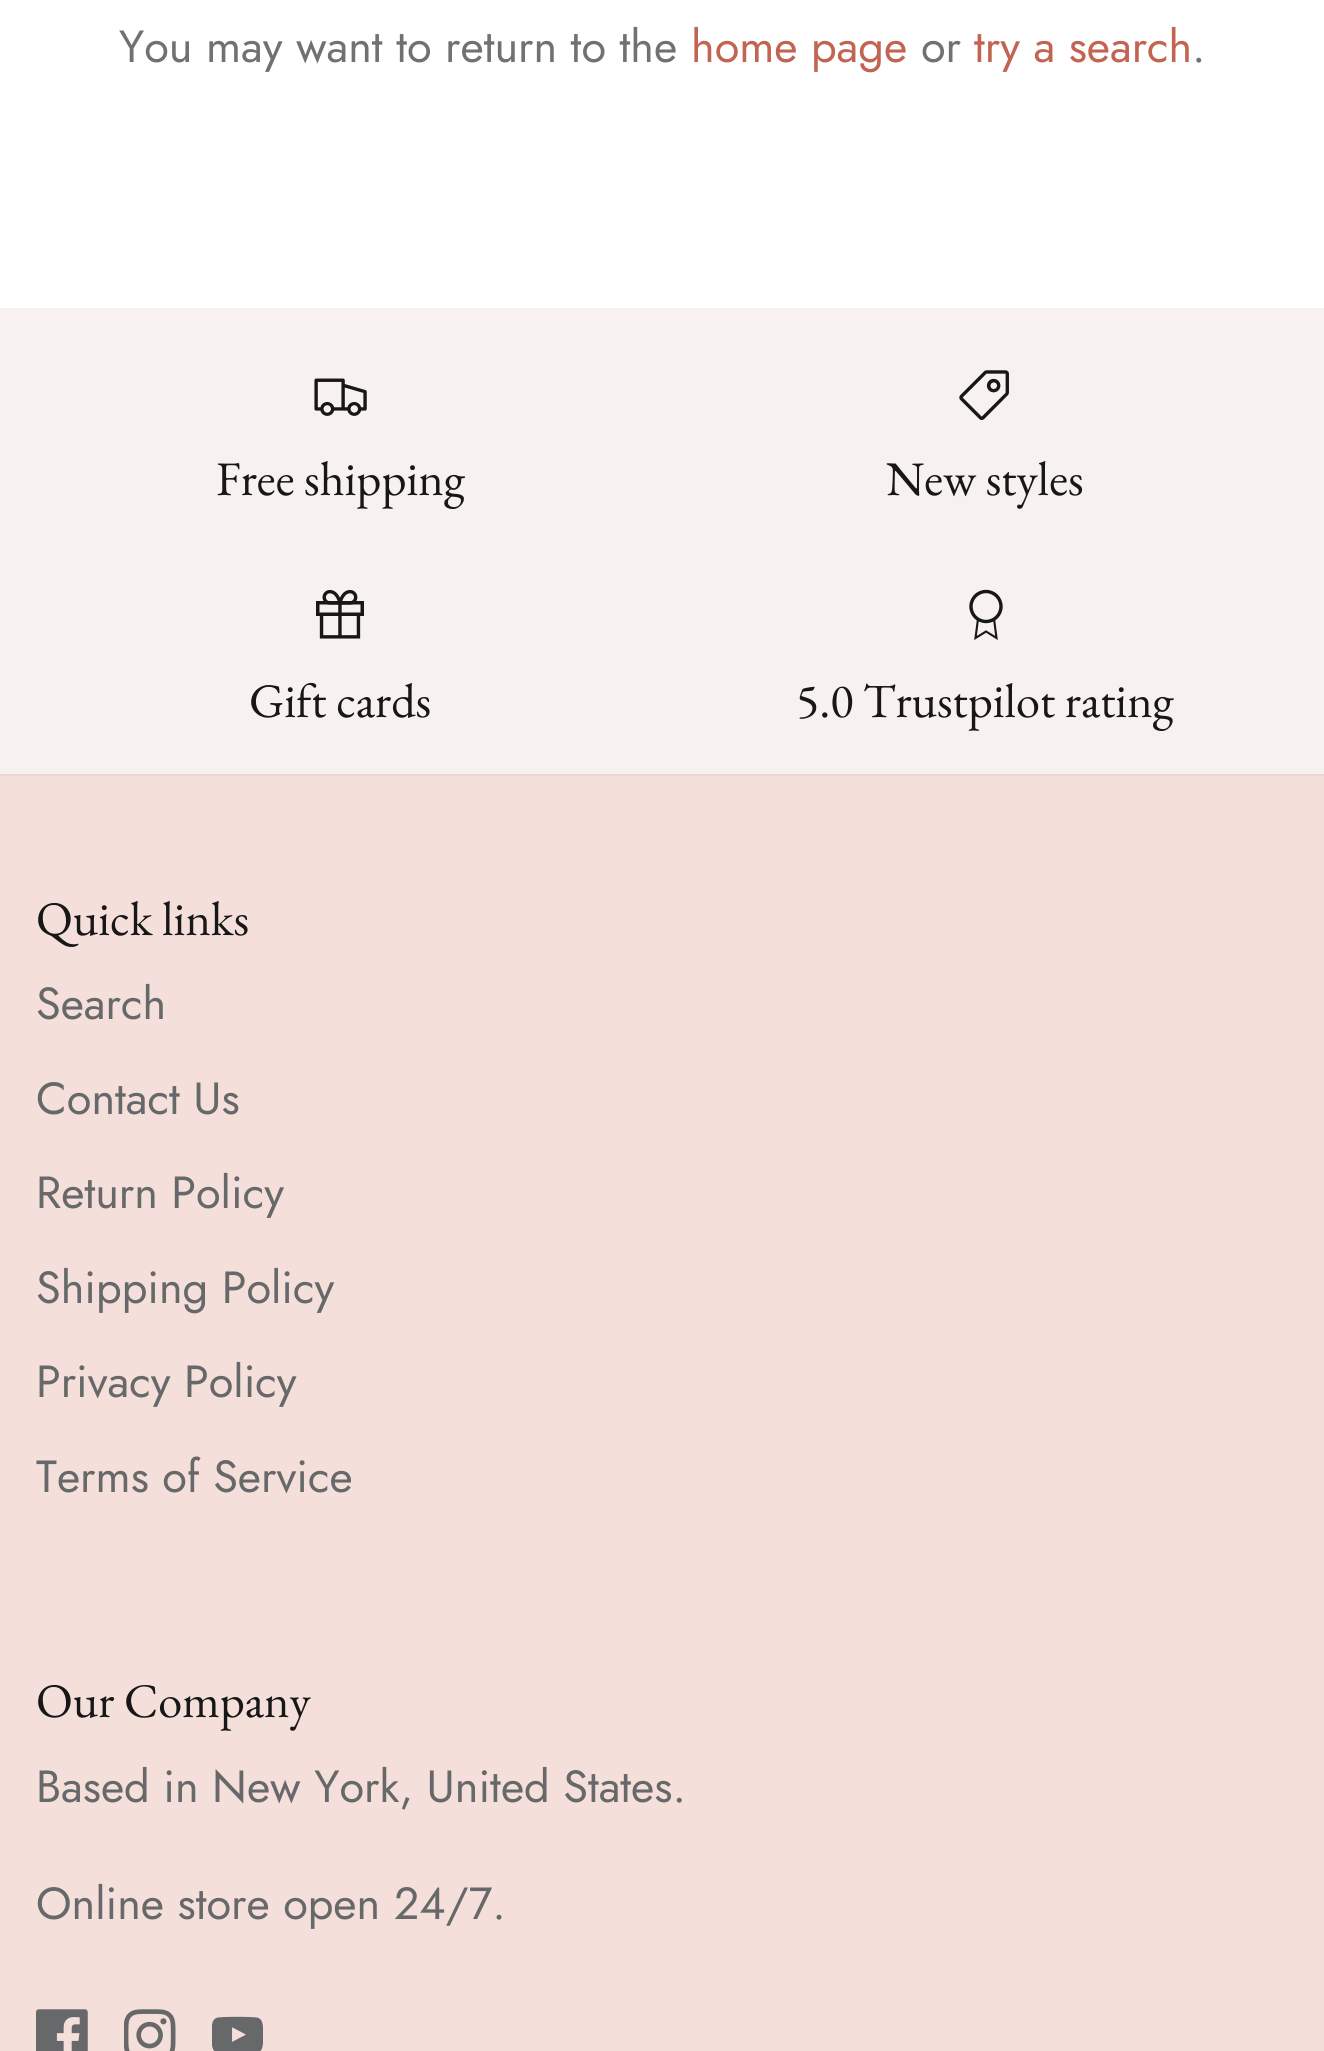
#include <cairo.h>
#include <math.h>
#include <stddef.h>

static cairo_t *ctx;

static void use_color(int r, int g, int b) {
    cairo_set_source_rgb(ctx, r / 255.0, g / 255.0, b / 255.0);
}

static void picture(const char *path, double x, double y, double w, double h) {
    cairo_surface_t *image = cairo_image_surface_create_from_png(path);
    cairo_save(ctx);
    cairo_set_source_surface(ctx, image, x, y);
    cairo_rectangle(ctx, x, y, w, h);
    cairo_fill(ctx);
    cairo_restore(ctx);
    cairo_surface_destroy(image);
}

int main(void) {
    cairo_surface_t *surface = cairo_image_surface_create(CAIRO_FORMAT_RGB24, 1324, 2051);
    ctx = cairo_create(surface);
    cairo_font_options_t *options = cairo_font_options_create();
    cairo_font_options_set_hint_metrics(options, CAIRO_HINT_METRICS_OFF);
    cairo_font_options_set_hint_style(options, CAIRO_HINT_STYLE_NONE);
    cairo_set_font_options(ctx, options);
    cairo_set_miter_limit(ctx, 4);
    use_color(255, 255, 255);
    cairo_paint(ctx);
    cairo_select_font_face(ctx, "Jost", CAIRO_FONT_SLANT_NORMAL, CAIRO_FONT_WEIGHT_NORMAL);
    cairo_set_font_size(ctx, 45);
    use_color(112, 113, 115);
    cairo_move_to(ctx, 119, 62);
    cairo_show_text(ctx, "You may want to return to the");
    use_color(193, 100, 82);
    cairo_move_to(ctx, 691, 62);
    cairo_show_text(ctx, "home page");
    use_color(112, 113, 115);
    cairo_move_to(ctx, 921, 62);
    cairo_show_text(ctx, "or");
    use_color(193, 100, 82);
    cairo_move_to(ctx, 974, 62);
    cairo_show_text(ctx, "try a search");
    use_color(112, 113, 115);
    cairo_move_to(ctx, 1192, 62);
    cairo_show_text(ctx, ".");
    use_color(244, 223, 219);
    cairo_rectangle(ctx, 0, 776, 1324, 1275);
    cairo_fill(ctx);
    use_color(247, 241, 240);
    cairo_rectangle(ctx, 0, 308, 1324, 466);
    cairo_fill(ctx);
    picture("img1.png", 314, 378, 53, 38);
    cairo_select_font_face(ctx, "EB Garamond", CAIRO_FONT_SLANT_NORMAL, CAIRO_FONT_WEIGHT_NORMAL);
    cairo_set_font_size(ctx, 48.25);
    use_color(23, 23, 23);
    cairo_move_to(ctx, 216, 495);
    cairo_show_text(ctx, "Free shipping");
    picture("img2.png", 959, 370, 50, 50);
    cairo_move_to(ctx, 886, 495);
    cairo_show_text(ctx, "New styles");
    picture("img3.png", 316, 589, 48, 50);
    cairo_move_to(ctx, 249, 717);
    cairo_show_text(ctx, "Gift cards");
    cairo_new_path(ctx);
    cairo_arc(ctx, 986, 606.5, 15, 0, 2 * M_PI);
    cairo_set_line_width(ctx, 3.4);
    cairo_stroke(ctx);
    cairo_new_path(ctx);
    cairo_move_to(ctx, 978, 619);
    cairo_line_to(ctx, 975.5, 638);
    cairo_line_to(ctx, 986, 631.5);
    cairo_line_to(ctx, 996.5, 638);
    cairo_line_to(ctx, 994, 619);
    cairo_set_line_width(ctx, 2.1);
    cairo_stroke(ctx);
    cairo_move_to(ctx, 796, 717);
    cairo_show_text(ctx, "5.0 Trustpilot rating");
    use_color(236, 214, 209);
    cairo_rectangle(ctx, 0, 774, 1324, 2);
    cairo_fill(ctx);
    use_color(23, 23, 23);
    cairo_move_to(ctx, 36, 935);
    cairo_show_text(ctx, "Quick links");
    cairo_select_font_face(ctx, "Jost", CAIRO_FONT_SLANT_NORMAL, CAIRO_FONT_WEIGHT_NORMAL);
    cairo_set_font_size(ctx, 45);
    use_color(103, 104, 105);
    cairo_move_to(ctx, 36, 1019);
    cairo_show_text(ctx, "Search");
    cairo_move_to(ctx, 36, 1114);
    cairo_show_text(ctx, "Contact Us");
    cairo_move_to(ctx, 36, 1208);
    cairo_show_text(ctx, "Return Policy");
    cairo_move_to(ctx, 36, 1303);
    cairo_show_text(ctx, "Shipping Policy");
    cairo_move_to(ctx, 36, 1397);
    cairo_show_text(ctx, "Privacy Policy");
    cairo_move_to(ctx, 36, 1492);
    cairo_show_text(ctx, "Terms of Service");
    cairo_select_font_face(ctx, "EB Garamond", CAIRO_FONT_SLANT_NORMAL, CAIRO_FONT_WEIGHT_NORMAL);
    cairo_set_font_size(ctx, 48.25);
    use_color(23, 23, 23);
    cairo_move_to(ctx, 36, 1717);
    cairo_show_text(ctx, "Our Company");
    cairo_select_font_face(ctx, "Jost", CAIRO_FONT_SLANT_NORMAL, CAIRO_FONT_WEIGHT_NORMAL);
    cairo_set_font_size(ctx, 45);
    use_color(103, 104, 105);
    cairo_move_to(ctx, 36, 1802);
    cairo_show_text(ctx, "Based in New York, United States.");
    cairo_move_to(ctx, 36, 1919);
    cairo_show_text(ctx, "Online store open 24/7.");
    picture("img4.png", 36, 2009, 52, 42);
    picture("img5.png", 124, 2009, 52, 42);
    picture("img6.png", 212, 2016, 51, 35);
    cairo_surface_write_to_png(surface, "result.png");
    cairo_font_options_destroy(options);
    cairo_destroy(ctx);
    cairo_surface_destroy(surface);
    return 0;
}
